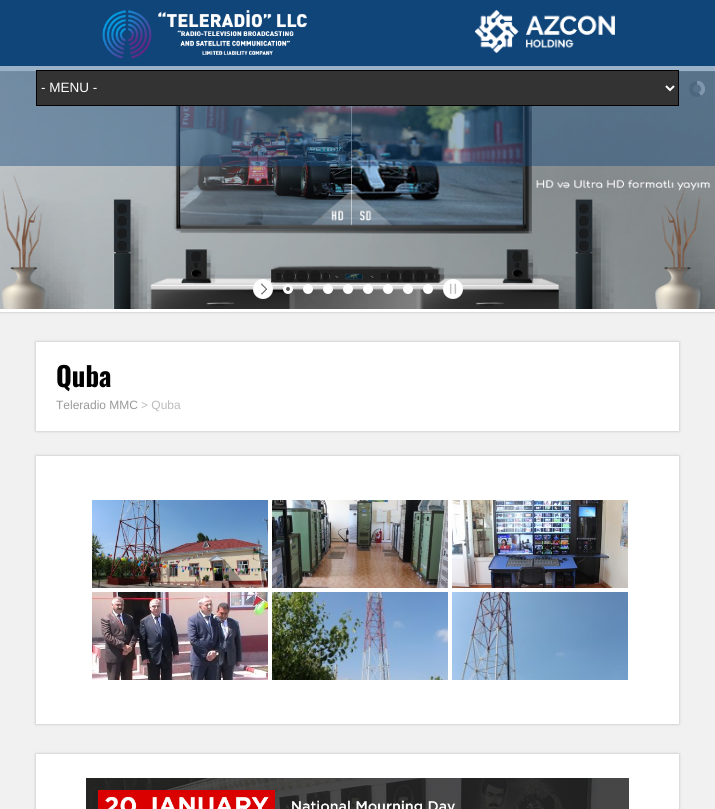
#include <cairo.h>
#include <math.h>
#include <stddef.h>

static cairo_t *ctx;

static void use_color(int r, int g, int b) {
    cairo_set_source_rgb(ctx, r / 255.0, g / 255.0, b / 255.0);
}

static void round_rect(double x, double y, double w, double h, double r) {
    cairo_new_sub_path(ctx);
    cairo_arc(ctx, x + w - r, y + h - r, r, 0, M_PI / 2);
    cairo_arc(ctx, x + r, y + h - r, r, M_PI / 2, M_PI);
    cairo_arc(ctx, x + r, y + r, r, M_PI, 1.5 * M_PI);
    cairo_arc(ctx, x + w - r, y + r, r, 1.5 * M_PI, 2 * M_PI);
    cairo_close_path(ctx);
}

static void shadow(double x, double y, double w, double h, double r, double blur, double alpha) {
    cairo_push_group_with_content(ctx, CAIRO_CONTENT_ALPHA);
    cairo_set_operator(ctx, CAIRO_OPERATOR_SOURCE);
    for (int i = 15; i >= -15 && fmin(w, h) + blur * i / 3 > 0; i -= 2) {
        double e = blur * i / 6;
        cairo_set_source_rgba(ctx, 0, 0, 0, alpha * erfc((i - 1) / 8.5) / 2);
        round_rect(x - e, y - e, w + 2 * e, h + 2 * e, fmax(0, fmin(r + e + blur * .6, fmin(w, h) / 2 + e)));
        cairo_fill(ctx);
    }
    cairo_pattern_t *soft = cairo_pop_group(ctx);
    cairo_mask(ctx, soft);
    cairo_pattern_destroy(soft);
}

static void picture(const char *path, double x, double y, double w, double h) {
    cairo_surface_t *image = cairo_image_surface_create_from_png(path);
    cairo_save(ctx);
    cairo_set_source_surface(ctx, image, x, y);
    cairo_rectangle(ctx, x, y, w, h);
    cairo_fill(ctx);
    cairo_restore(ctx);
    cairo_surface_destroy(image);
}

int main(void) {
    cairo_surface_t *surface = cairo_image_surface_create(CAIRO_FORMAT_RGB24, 715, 809);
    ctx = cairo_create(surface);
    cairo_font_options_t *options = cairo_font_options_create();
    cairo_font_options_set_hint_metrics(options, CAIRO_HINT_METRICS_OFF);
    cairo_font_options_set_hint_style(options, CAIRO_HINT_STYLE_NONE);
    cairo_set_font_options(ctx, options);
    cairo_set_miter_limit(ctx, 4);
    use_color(241, 241, 241);
    cairo_paint(ctx);
    use_color(187, 187, 187);
    shadow(0, 0, 715, 312, 0, 1.5, 1);
    use_color(255, 255, 255);
    cairo_rectangle(ctx, 0, 66, 715, 246);
    cairo_fill(ctx);
    use_color(16, 69, 122);
    cairo_rectangle(ctx, 0, 0, 715, 66);
    cairo_fill(ctx);
    picture("img1.png", 102, 10, 205, 49);
    picture("img2.png", 475, 10, 140, 43);
    picture("img3.png", 0, 71, 715, 238);
    cairo_arc(ctx, 697, 89, 6, 0, 2 * M_PI);
    cairo_set_source_rgba(ctx, 0, 0, 0, 0.13);
    cairo_set_line_width(ctx, 4);
    cairo_stroke(ctx);
    cairo_save(ctx);
    cairo_rectangle(ctx, 697, 81, 8, 16);
    cairo_clip(ctx);
    cairo_new_path(ctx);
    cairo_move_to(ctx, 708, 92);
    cairo_line_to(ctx, 701, 96);
    cairo_line_to(ctx, 693, 82);
    cairo_line_to(ctx, 700, 78);
    cairo_close_path(ctx);
    cairo_clip(ctx);
    cairo_new_path(ctx);
    cairo_move_to(ctx, 700, 94);
    cairo_curve_to(ctx, 693, 98, 687, 87.5, 694, 83.5);
    cairo_curve_to(ctx, 701, 79.5, 707, 90, 700, 94);
    cairo_close_path(ctx);
    cairo_set_source_rgba(ctx, 1, 1, 1, 0.65);
    cairo_stroke(ctx);
    cairo_restore(ctx);
    picture("img4.png", 253, 279, 20, 20);
    picture("img5.png", 283, 284, 10, 10);
    picture("img6.png", 303, 284, 10, 10);
    picture("img7.png", 323, 284, 10, 10);
    picture("img8.png", 343, 284, 10, 10);
    picture("img9.png", 363, 284, 10, 10);
    picture("img10.png", 383, 284, 10, 10);
    picture("img11.png", 403, 284, 10, 10);
    picture("img12.png", 423, 284, 10, 10);
    picture("img13.png", 443, 279, 20, 20);
    cairo_set_source_rgba(ctx, 0.063, 0.271, 0.478, 0.42);
    cairo_rectangle(ctx, 0, 66, 715, 100);
    cairo_fill(ctx);
    use_color(51, 51, 51);
    cairo_rectangle(ctx, 36.5, 70.5, 642, 35);
    cairo_fill_preserve(ctx);
    use_color(0, 0, 0);
    cairo_set_line_width(ctx, 1);
    cairo_stroke(ctx);
    cairo_new_path(ctx);
    cairo_move_to(ctx, 666, 86);
    cairo_line_to(ctx, 670, 90);
    cairo_line_to(ctx, 674, 86);
    use_color(255, 255, 255);
    cairo_set_line_width(ctx, 2);
    cairo_stroke(ctx);
    cairo_select_font_face(ctx, "Liberation Sans", CAIRO_FONT_SLANT_NORMAL, CAIRO_FONT_WEIGHT_NORMAL);
    cairo_set_font_size(ctx, 13.5);
    cairo_move_to(ctx, 41, 92);
    cairo_show_text(ctx, "- MENU -");
    use_color(187, 187, 187);
    shadow(36, 342, 643, 89, 0, 1.5, 1);
    use_color(255, 255, 255);
    cairo_rectangle(ctx, 36, 342, 643, 89);
    cairo_fill(ctx);
    cairo_select_font_face(ctx, "Oswald", CAIRO_FONT_SLANT_NORMAL, CAIRO_FONT_WEIGHT_BOLD);
    cairo_set_font_size(ctx, 27);
    use_color(0, 0, 0);
    cairo_move_to(ctx, 56, 387);
    cairo_show_text(ctx, "Quba");
    cairo_select_font_face(ctx, "Liberation Sans", CAIRO_FONT_SLANT_NORMAL, CAIRO_FONT_WEIGHT_NORMAL);
    cairo_set_font_size(ctx, 12);
    use_color(153, 153, 153);
    cairo_move_to(ctx, 56, 409);
    cairo_show_text(ctx, "Teleradio MMC");
    use_color(187, 187, 187);
    cairo_move_to(ctx, 141, 409);
    cairo_show_text(ctx, "> Quba");
    use_color(187, 187, 187);
    shadow(36, 456, 643, 268, 0, 1.5, 1);
    use_color(255, 255, 255);
    cairo_rectangle(ctx, 36, 456, 643, 268);
    cairo_fill(ctx);
    picture("img14.png", 92, 500, 176, 88);
    picture("img15.png", 272, 500, 176, 88);
    picture("img16.png", 452, 500, 176, 88);
    picture("img17.png", 92, 592, 176, 88);
    picture("img18.png", 272, 592, 176, 88);
    picture("img19.png", 452, 592, 176, 88);
    use_color(187, 187, 187);
    shadow(36, 754, 643, 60, 0, 1.5, 1);
    use_color(255, 255, 255);
    cairo_rectangle(ctx, 36, 754, 643, 55);
    cairo_fill(ctx);
    picture("img20.png", 86, 778, 543, 31);
    cairo_surface_write_to_png(surface, "result.png");
    cairo_font_options_destroy(options);
    cairo_destroy(ctx);
    cairo_surface_destroy(surface);
    return 0;
}
